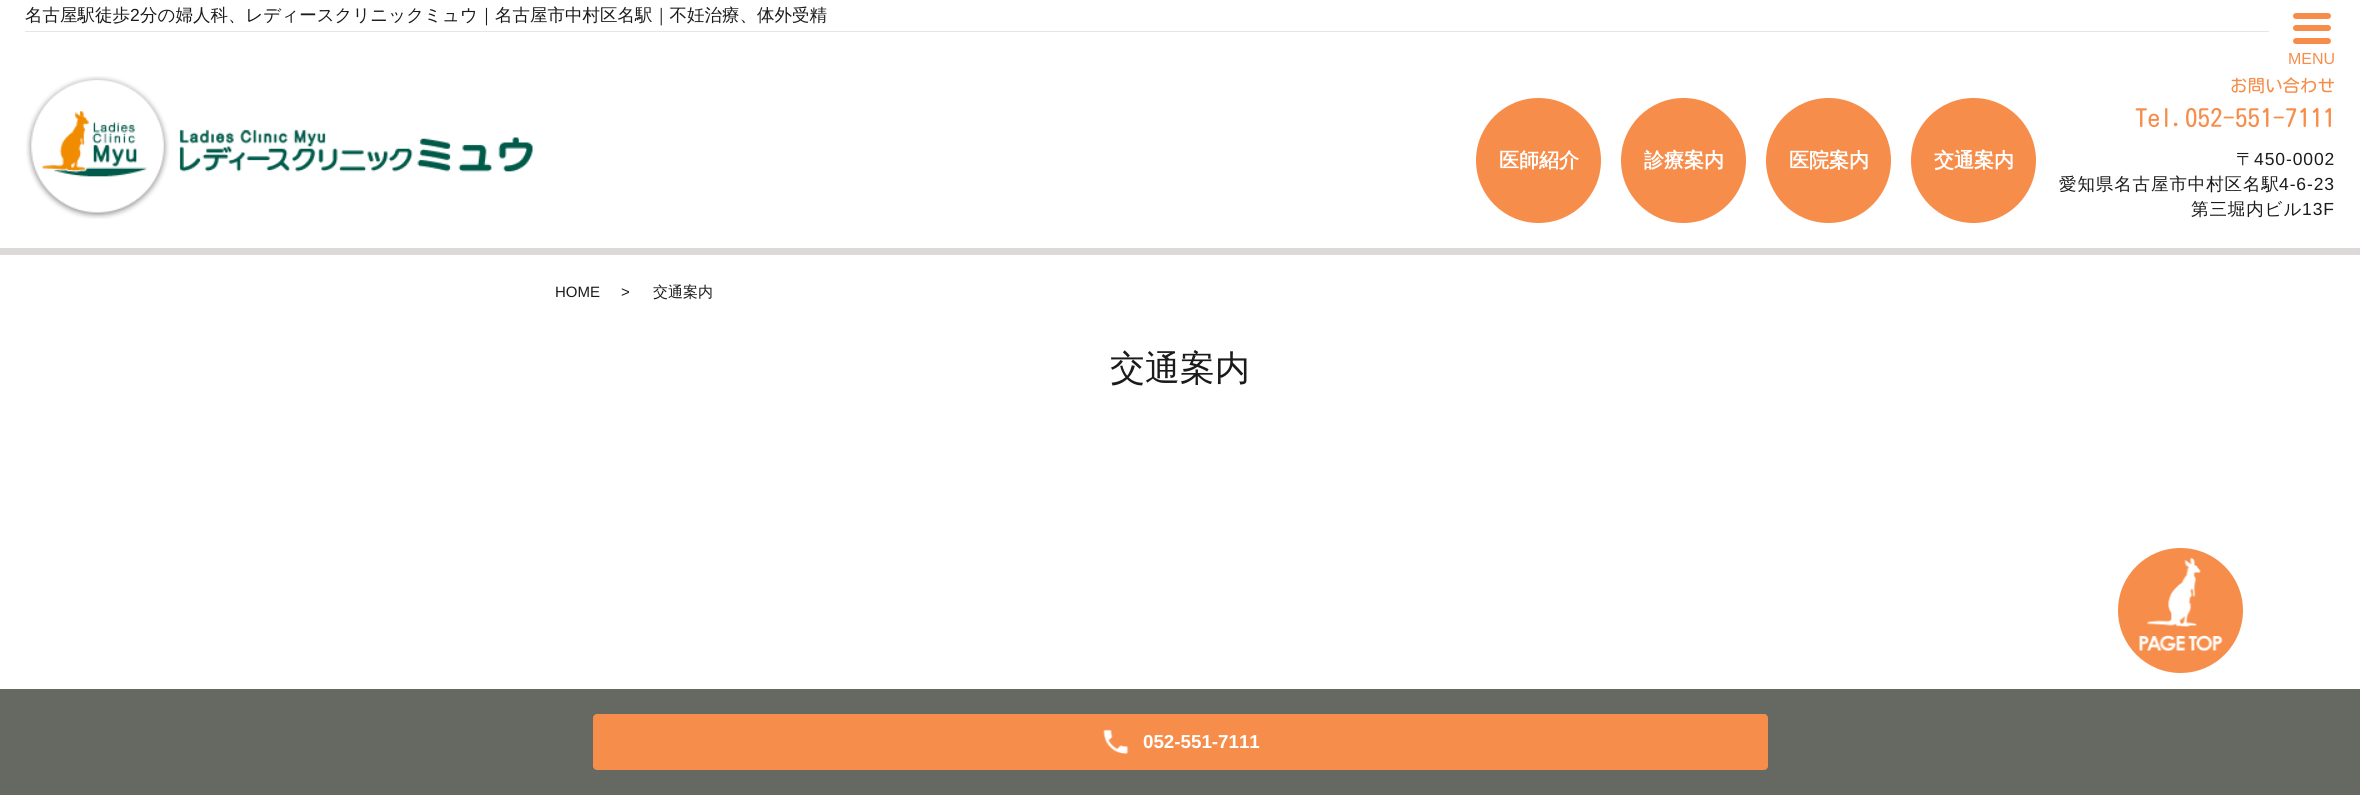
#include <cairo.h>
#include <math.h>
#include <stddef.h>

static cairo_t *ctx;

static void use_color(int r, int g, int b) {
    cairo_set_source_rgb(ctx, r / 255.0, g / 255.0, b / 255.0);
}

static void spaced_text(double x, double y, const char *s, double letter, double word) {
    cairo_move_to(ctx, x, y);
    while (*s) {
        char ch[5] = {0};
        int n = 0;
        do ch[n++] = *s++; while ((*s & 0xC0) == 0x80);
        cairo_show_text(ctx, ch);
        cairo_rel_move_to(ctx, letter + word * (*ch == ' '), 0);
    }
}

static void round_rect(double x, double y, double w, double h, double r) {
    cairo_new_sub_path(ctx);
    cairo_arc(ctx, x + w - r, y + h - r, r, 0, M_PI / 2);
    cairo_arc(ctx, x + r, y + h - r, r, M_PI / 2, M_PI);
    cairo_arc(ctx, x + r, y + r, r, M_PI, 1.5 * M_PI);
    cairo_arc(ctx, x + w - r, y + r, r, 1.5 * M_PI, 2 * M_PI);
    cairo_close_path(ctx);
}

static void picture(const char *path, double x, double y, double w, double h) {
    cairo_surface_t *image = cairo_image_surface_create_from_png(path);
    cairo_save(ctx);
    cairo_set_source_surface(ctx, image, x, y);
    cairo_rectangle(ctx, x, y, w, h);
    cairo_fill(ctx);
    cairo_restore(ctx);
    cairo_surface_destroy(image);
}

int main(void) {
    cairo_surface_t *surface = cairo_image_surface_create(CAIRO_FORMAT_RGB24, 2360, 795);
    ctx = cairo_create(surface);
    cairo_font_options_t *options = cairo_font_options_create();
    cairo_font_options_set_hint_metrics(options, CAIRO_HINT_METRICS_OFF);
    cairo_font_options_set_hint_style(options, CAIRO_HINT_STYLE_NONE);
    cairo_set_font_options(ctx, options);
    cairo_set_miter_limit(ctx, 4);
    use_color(255, 255, 255);
    cairo_paint(ctx);
    use_color(222, 217, 217);
    cairo_rectangle(ctx, 0, 248, 2360, 7);
    cairo_fill(ctx);
    use_color(230, 230, 230);
    cairo_rectangle(ctx, 25, 31, 2244, 1);
    cairo_fill(ctx);
    cairo_select_font_face(ctx, "WenQuanYi Zen Hei Medium", CAIRO_FONT_SLANT_NORMAL, CAIRO_FONT_WEIGHT_NORMAL);
    cairo_set_font_size(ctx, 17.5);
    use_color(27, 27, 27);
    cairo_move_to(ctx, 25, 21);
    cairo_show_text(ctx, "名古屋駅徒歩");
    cairo_select_font_face(ctx, "Liberation Sans", CAIRO_FONT_SLANT_NORMAL, CAIRO_FONT_WEIGHT_NORMAL);
    cairo_move_to(ctx, 130, 21);
    cairo_show_text(ctx, "2");
    cairo_select_font_face(ctx, "WenQuanYi Zen Hei Medium", CAIRO_FONT_SLANT_NORMAL, CAIRO_FONT_WEIGHT_NORMAL);
    cairo_move_to(ctx, 140, 21);
    cairo_show_text(ctx, "分の婦人科、レディースクリニックミュウ｜名古屋市中村区名駅｜不妊治療、体外受精");
    picture("img1.png", 26, 76, 507, 143);
    use_color(247, 141, 74);
    cairo_arc(ctx, 1538.5, 160.5, 62.5, 0, 2 * M_PI);
    cairo_fill(ctx);
    cairo_select_font_face(ctx, "WenQuanYi Zen Hei", CAIRO_FONT_SLANT_NORMAL, CAIRO_FONT_WEIGHT_BOLD);
    cairo_set_font_size(ctx, 20);
    use_color(255, 255, 255);
    cairo_move_to(ctx, 1499, 167);
    cairo_show_text(ctx, "医師紹介");
    use_color(247, 141, 74);
    cairo_new_path(ctx);
    cairo_arc(ctx, 1683.5, 160.5, 62.5, 0, 2 * M_PI);
    cairo_fill(ctx);
    use_color(255, 255, 255);
    cairo_move_to(ctx, 1644, 167);
    cairo_show_text(ctx, "診療案内");
    use_color(247, 141, 74);
    cairo_new_path(ctx);
    cairo_arc(ctx, 1828.5, 160.5, 62.5, 0, 2 * M_PI);
    cairo_fill(ctx);
    use_color(255, 255, 255);
    cairo_move_to(ctx, 1789, 167);
    cairo_show_text(ctx, "医院案内");
    use_color(247, 141, 74);
    cairo_new_path(ctx);
    cairo_arc(ctx, 1973.5, 160.5, 62.5, 0, 2 * M_PI);
    cairo_fill(ctx);
    use_color(255, 255, 255);
    cairo_move_to(ctx, 1934, 167);
    cairo_show_text(ctx, "交通案内");
    use_color(247, 141, 74);
    round_rect(2293, 13, 38, 6, 3);
    cairo_fill(ctx);
    round_rect(2293, 25, 38, 6, 3);
    cairo_fill(ctx);
    round_rect(2293, 38, 38, 6, 3);
    cairo_fill(ctx);
    cairo_select_font_face(ctx, "Liberation Sans", CAIRO_FONT_SLANT_NORMAL, CAIRO_FONT_WEIGHT_NORMAL);
    cairo_set_font_size(ctx, 16);
    cairo_move_to(ctx, 2288, 64);
    cairo_show_text(ctx, "MENU");
    cairo_select_font_face(ctx, "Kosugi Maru", CAIRO_FONT_SLANT_NORMAL, CAIRO_FONT_WEIGHT_NORMAL);
    cairo_set_font_size(ctx, 17.5);
    cairo_move_to(ctx, 2230, 92);
    cairo_show_text(ctx, "お問い合わせ");
    cairo_set_font_size(ctx, 25);
    cairo_move_to(ctx, 2135, 127);
    cairo_show_text(ctx, "Tel.052-551-7111");
    cairo_select_font_face(ctx, "WenQuanYi Zen Hei Medium", CAIRO_FONT_SLANT_NORMAL, CAIRO_FONT_WEIGHT_NORMAL);
    cairo_set_font_size(ctx, 17.5);
    use_color(27, 27, 27);
    spaced_text(2236, 165, "〒", 0.9, 0);
    cairo_select_font_face(ctx, "Liberation Sans", CAIRO_FONT_SLANT_NORMAL, CAIRO_FONT_WEIGHT_NORMAL);
    spaced_text(2254, 165, "450-0002", 0.9, 0);
    cairo_select_font_face(ctx, "WenQuanYi Zen Hei Medium", CAIRO_FONT_SLANT_NORMAL, CAIRO_FONT_WEIGHT_NORMAL);
    spaced_text(2059, 190, "愛知県名古屋市中村区名駅", 0.9, 0);
    cairo_select_font_face(ctx, "Liberation Sans", CAIRO_FONT_SLANT_NORMAL, CAIRO_FONT_WEIGHT_NORMAL);
    spaced_text(2279, 190, "4-6-23", 0.9, 0);
    cairo_select_font_face(ctx, "WenQuanYi Zen Hei Medium", CAIRO_FONT_SLANT_NORMAL, CAIRO_FONT_WEIGHT_NORMAL);
    spaced_text(2191, 215, "第三堀内ビル", 0.9, 0);
    cairo_select_font_face(ctx, "Liberation Sans", CAIRO_FONT_SLANT_NORMAL, CAIRO_FONT_WEIGHT_NORMAL);
    spaced_text(2302, 215, "13F", 0.9, 0);
    cairo_set_font_size(ctx, 15);
    cairo_move_to(ctx, 555, 297);
    cairo_show_text(ctx, "HOME");
    cairo_move_to(ctx, 621, 297);
    cairo_show_text(ctx, ">");
    cairo_select_font_face(ctx, "WenQuanYi Zen Hei Medium", CAIRO_FONT_SLANT_NORMAL, CAIRO_FONT_WEIGHT_NORMAL);
    cairo_move_to(ctx, 653, 297);
    cairo_show_text(ctx, "交通案内");
    cairo_set_font_size(ctx, 35);
    cairo_move_to(ctx, 1110, 380);
    cairo_show_text(ctx, "交通案内");
    use_color(247, 141, 74);
    cairo_new_path(ctx);
    cairo_arc(ctx, 2180.5, 610.5, 62.5, 0, 2 * M_PI);
    cairo_fill(ctx);
    picture("img2.png", 2139, 558, 84, 94);
    use_color(101, 105, 98);
    cairo_rectangle(ctx, 0, 689, 2360, 106);
    cairo_fill(ctx);
    use_color(247, 141, 74);
    round_rect(593, 714, 1175, 56, 4);
    cairo_fill(ctx);
    picture("img3.png", 1103, 729, 26, 25);
    cairo_select_font_face(ctx, "Liberation Sans", CAIRO_FONT_SLANT_NORMAL, CAIRO_FONT_WEIGHT_BOLD);
    cairo_set_font_size(ctx, 18.75);
    use_color(255, 255, 255);
    cairo_move_to(ctx, 1143, 748);
    cairo_show_text(ctx, "052-551-7111");
    cairo_surface_write_to_png(surface, "result.png");
    cairo_font_options_destroy(options);
    cairo_destroy(ctx);
    cairo_surface_destroy(surface);
    return 0;
}
